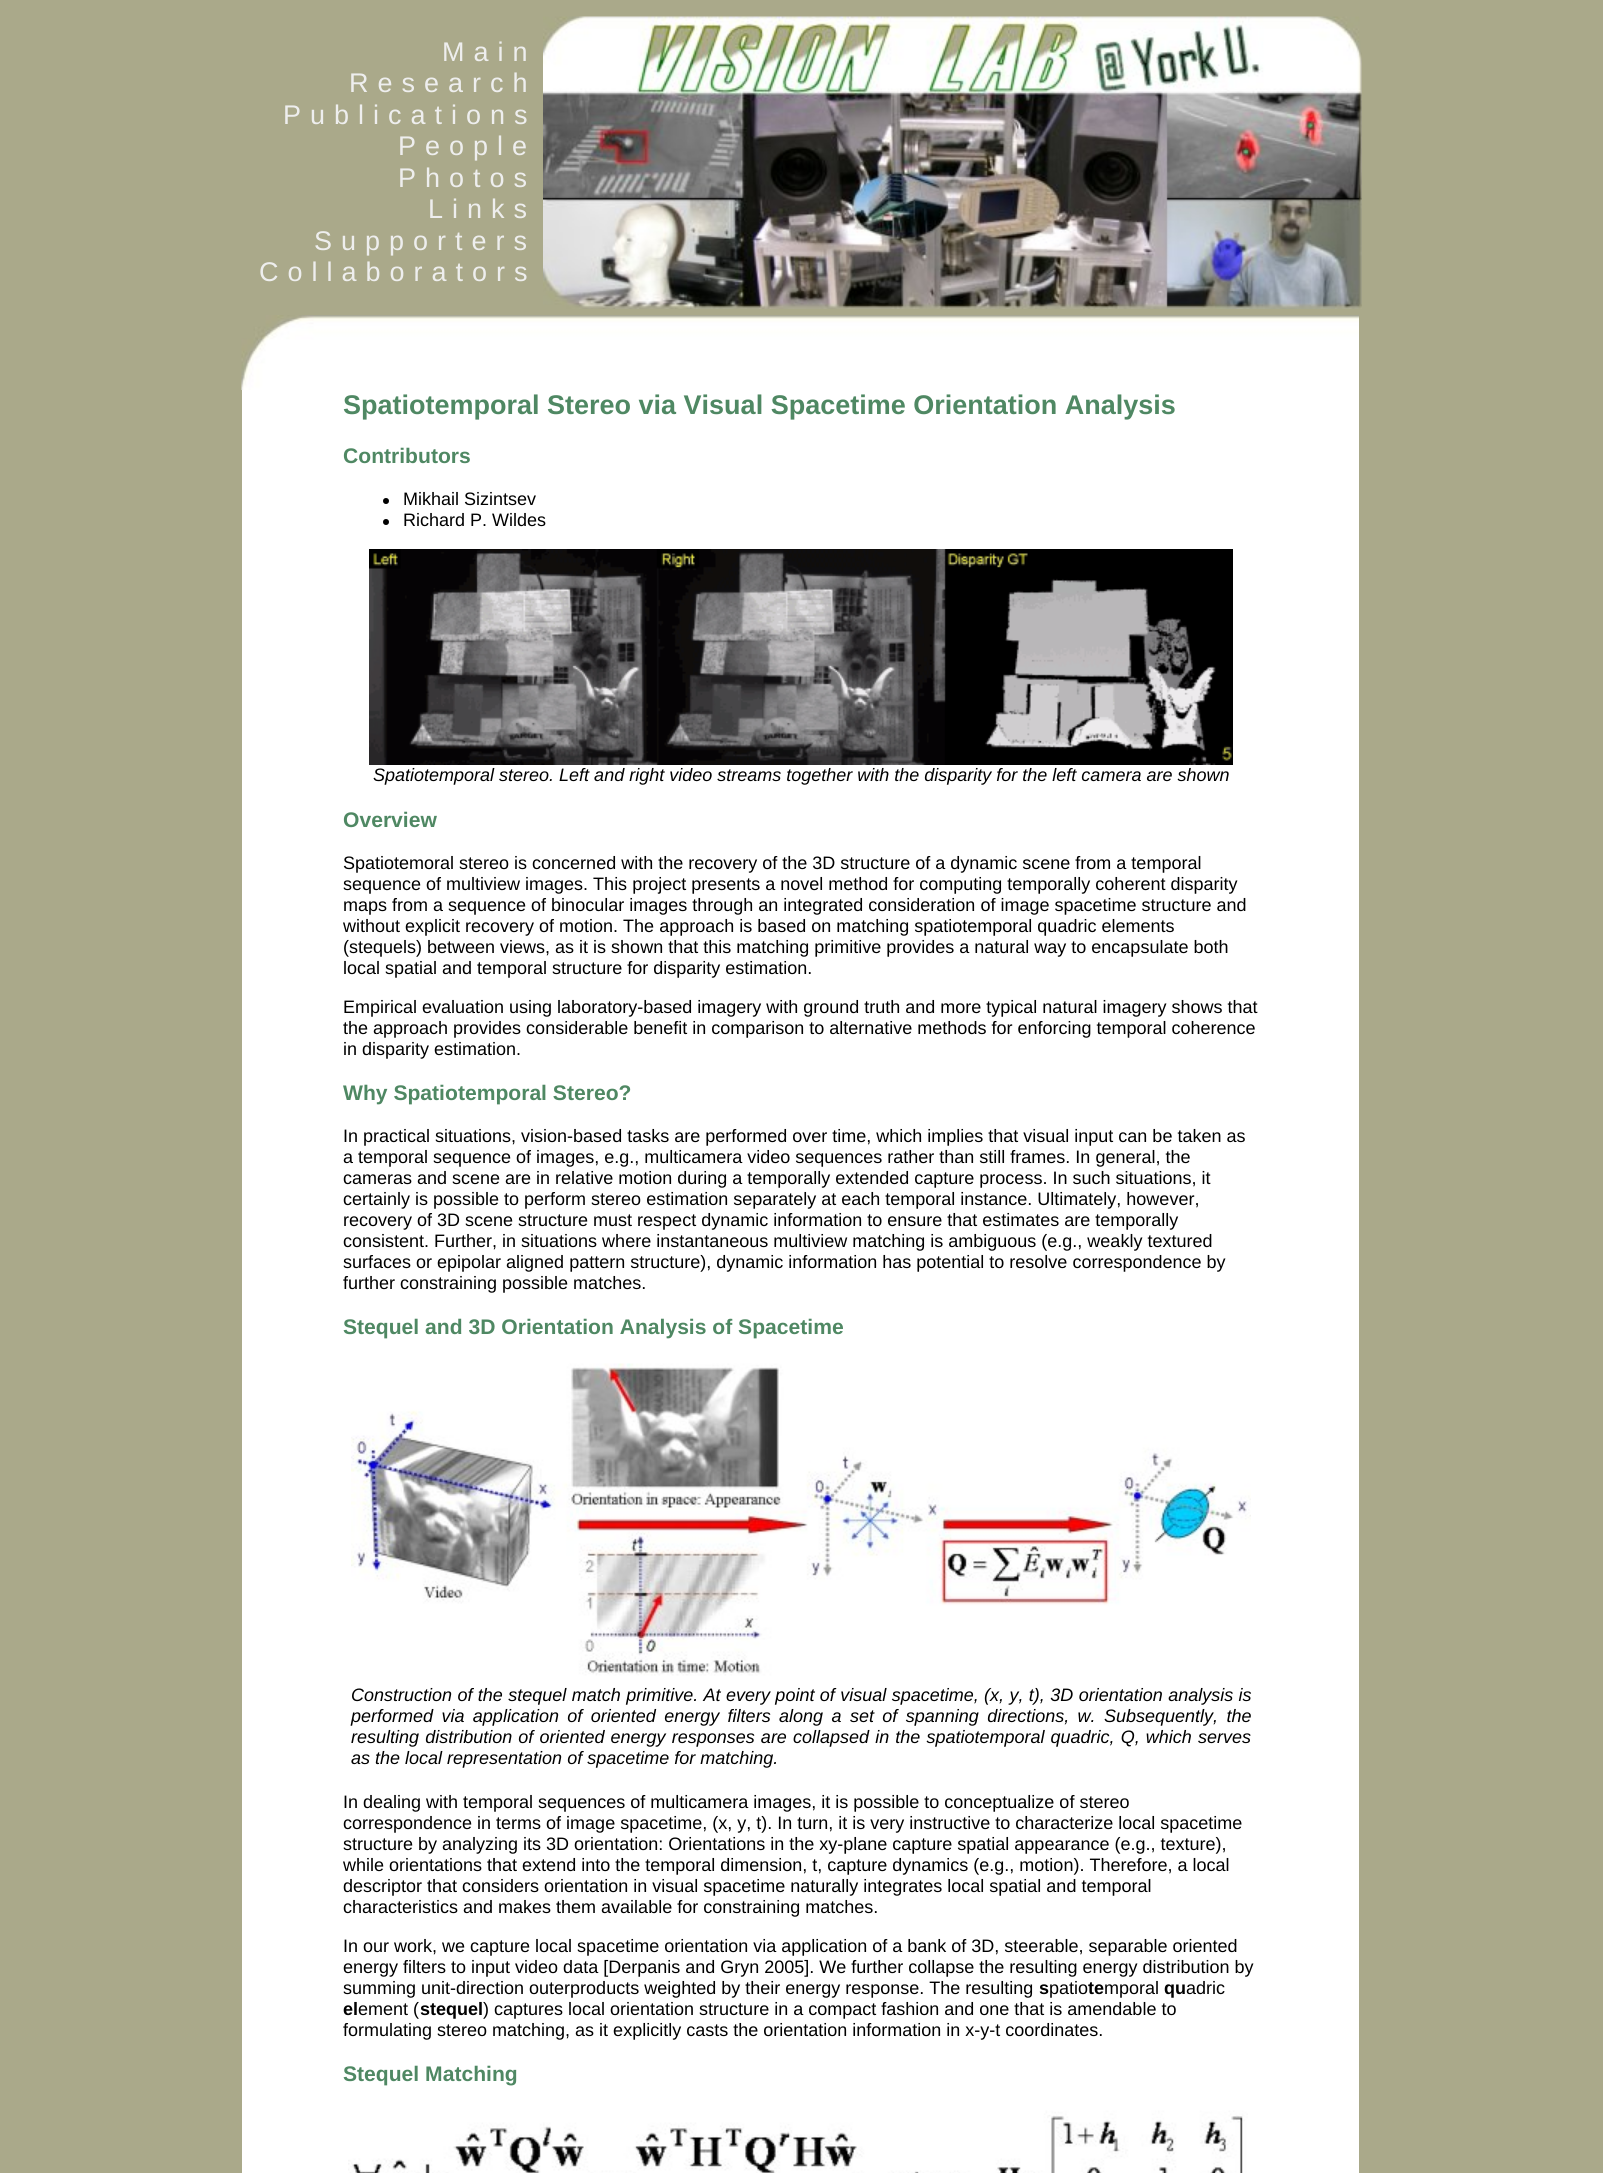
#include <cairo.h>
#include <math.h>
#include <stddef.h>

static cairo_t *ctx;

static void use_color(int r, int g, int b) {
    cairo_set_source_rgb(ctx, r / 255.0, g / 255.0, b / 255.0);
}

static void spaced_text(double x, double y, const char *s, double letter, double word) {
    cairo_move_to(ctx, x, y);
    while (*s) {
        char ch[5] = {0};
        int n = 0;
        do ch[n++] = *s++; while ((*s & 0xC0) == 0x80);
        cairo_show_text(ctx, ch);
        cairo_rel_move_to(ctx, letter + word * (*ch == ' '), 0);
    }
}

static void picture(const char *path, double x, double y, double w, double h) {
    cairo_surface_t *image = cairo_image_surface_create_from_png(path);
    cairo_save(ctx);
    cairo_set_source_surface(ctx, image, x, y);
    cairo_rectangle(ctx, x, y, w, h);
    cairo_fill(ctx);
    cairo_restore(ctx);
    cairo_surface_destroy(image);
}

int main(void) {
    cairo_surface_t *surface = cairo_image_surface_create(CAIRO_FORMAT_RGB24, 1603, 2173);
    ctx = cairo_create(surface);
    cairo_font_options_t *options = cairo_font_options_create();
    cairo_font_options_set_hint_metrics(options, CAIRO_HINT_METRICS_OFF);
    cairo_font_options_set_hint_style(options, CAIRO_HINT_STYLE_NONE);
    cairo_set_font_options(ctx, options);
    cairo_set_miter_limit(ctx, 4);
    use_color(170, 169, 138);
    cairo_paint(ctx);
    cairo_select_font_face(ctx, "Liberation Sans", CAIRO_FONT_SLANT_NORMAL, CAIRO_FONT_WEIGHT_NORMAL);
    cairo_set_font_size(ctx, 27);
    use_color(238, 238, 238);
    spaced_text(442, 61, "Main", 9, 0);
    spaced_text(349, 92, "Research", 9, 0);
    spaced_text(283, 124, "Publications", 9, 0);
    spaced_text(398, 155, "People", 9, 0);
    spaced_text(398, 187, "Photos", 9, 0);
    spaced_text(428, 218, "Links", 9, 0);
    spaced_text(314, 250, "Supporters", 9, 0);
    spaced_text(259, 281, "Collaborators", 9, 0);
    picture("img1.png", 543, 16, 819, 293);
    picture("img2.png", 241, 315, 1118, 75);
    use_color(255, 255, 255);
    cairo_rectangle(ctx, 242, 390, 1117, 1783);
    cairo_fill(ctx);
    cairo_select_font_face(ctx, "Liberation Sans", CAIRO_FONT_SLANT_NORMAL, CAIRO_FONT_WEIGHT_BOLD);
    use_color(79, 136, 99);
    cairo_move_to(ctx, 343, 414);
    cairo_show_text(ctx, "Spatiotemporal Stereo via Visual Spacetime Orientation Analysis");
    cairo_set_font_size(ctx, 21.1);
    cairo_move_to(ctx, 343, 463);
    cairo_show_text(ctx, "Contributors");
    use_color(0, 0, 0);
    cairo_new_path(ctx);
    cairo_arc(ctx, 386, 501, 3, 0, 2 * M_PI);
    cairo_fill(ctx);
    cairo_select_font_face(ctx, "Liberation Sans", CAIRO_FONT_SLANT_NORMAL, CAIRO_FONT_WEIGHT_NORMAL);
    cairo_set_font_size(ctx, 18);
    cairo_move_to(ctx, 403, 505);
    cairo_show_text(ctx, "Mikhail Sizintsev");
    cairo_new_path(ctx);
    cairo_arc(ctx, 386, 522, 3, 0, 2 * M_PI);
    cairo_fill(ctx);
    cairo_move_to(ctx, 403, 526);
    cairo_show_text(ctx, "Richard P. Wildes");
    picture("img3.png", 369, 549, 864, 216);
    cairo_select_font_face(ctx, "Liberation Sans", CAIRO_FONT_SLANT_ITALIC, CAIRO_FONT_WEIGHT_NORMAL);
    cairo_move_to(ctx, 373, 781);
    cairo_show_text(ctx, "Spatiotemporal stereo. Left and right video streams together with the disparity for the left camera are shown");
    cairo_select_font_face(ctx, "Liberation Sans", CAIRO_FONT_SLANT_NORMAL, CAIRO_FONT_WEIGHT_BOLD);
    cairo_set_font_size(ctx, 21.1);
    use_color(79, 136, 99);
    cairo_move_to(ctx, 343, 827);
    cairo_show_text(ctx, "Overview");
    cairo_select_font_face(ctx, "Liberation Sans", CAIRO_FONT_SLANT_NORMAL, CAIRO_FONT_WEIGHT_NORMAL);
    cairo_set_font_size(ctx, 18);
    use_color(0, 0, 0);
    cairo_move_to(ctx, 343, 869);
    cairo_show_text(ctx, "Spatiotemoral stereo is concerned with the recovery of the 3D structure of a dynamic scene from a temporal");
    cairo_move_to(ctx, 343, 890);
    cairo_show_text(ctx, "sequence of multiview images. This project presents a novel method for computing temporally coherent disparity");
    cairo_move_to(ctx, 343, 911);
    cairo_show_text(ctx, "maps from a sequence of binocular images through an integrated consideration of image spacetime structure and");
    cairo_move_to(ctx, 343, 932);
    cairo_show_text(ctx, "without explicit recovery of motion. The approach is based on matching spatiotemporal quadric elements");
    cairo_move_to(ctx, 343, 953);
    cairo_show_text(ctx, "(stequels) between views, as it is shown that this matching primitive provides a natural way to encapsulate both");
    cairo_move_to(ctx, 343, 974);
    cairo_show_text(ctx, "local spatial and temporal structure for disparity estimation.");
    cairo_move_to(ctx, 343, 1013);
    cairo_show_text(ctx, "Empirical evaluation using laboratory-based imagery with ground truth and more typical natural imagery shows that");
    cairo_move_to(ctx, 343, 1034);
    cairo_show_text(ctx, "the approach provides considerable benefit in comparison to alternative methods for enforcing temporal coherence");
    cairo_move_to(ctx, 343, 1055);
    cairo_show_text(ctx, "in disparity estimation.");
    cairo_select_font_face(ctx, "Liberation Sans", CAIRO_FONT_SLANT_NORMAL, CAIRO_FONT_WEIGHT_BOLD);
    cairo_set_font_size(ctx, 21.1);
    use_color(79, 136, 99);
    cairo_move_to(ctx, 343, 1100);
    cairo_show_text(ctx, "Why Spatiotemporal Stereo?");
    cairo_select_font_face(ctx, "Liberation Sans", CAIRO_FONT_SLANT_NORMAL, CAIRO_FONT_WEIGHT_NORMAL);
    cairo_set_font_size(ctx, 18);
    use_color(0, 0, 0);
    cairo_move_to(ctx, 343, 1142);
    cairo_show_text(ctx, "In practical situations, vision-based tasks are performed over time, which implies that visual input can be taken as");
    cairo_move_to(ctx, 343, 1163);
    cairo_show_text(ctx, "a temporal sequence of images, e.g., multicamera video sequences rather than still frames. In general, the");
    cairo_move_to(ctx, 343, 1184);
    cairo_show_text(ctx, "cameras and scene are in relative motion during a temporally extended capture process. In such situations, it");
    cairo_move_to(ctx, 343, 1205);
    cairo_show_text(ctx, "certainly is possible to perform stereo estimation separately at each temporal instance. Ultimately, however,");
    cairo_move_to(ctx, 343, 1226);
    cairo_show_text(ctx, "recovery of 3D scene structure must respect dynamic information to ensure that estimates are temporally");
    cairo_move_to(ctx, 343, 1247);
    cairo_show_text(ctx, "consistent. Further, in situations where instantaneous multiview matching is ambiguous (e.g., weakly textured");
    cairo_move_to(ctx, 343, 1268);
    cairo_show_text(ctx, "surfaces or epipolar aligned pattern structure), dynamic information has potential to resolve correspondence by");
    cairo_move_to(ctx, 343, 1289);
    cairo_show_text(ctx, "further constraining possible matches.");
    cairo_select_font_face(ctx, "Liberation Sans", CAIRO_FONT_SLANT_NORMAL, CAIRO_FONT_WEIGHT_BOLD);
    cairo_set_font_size(ctx, 21.1);
    use_color(79, 136, 99);
    cairo_move_to(ctx, 343, 1334);
    cairo_show_text(ctx, "Stequel and 3D Orientation Analysis of Spacetime");
    picture("img4.png", 351, 1363, 900, 313);
    cairo_select_font_face(ctx, "Liberation Sans", CAIRO_FONT_SLANT_ITALIC, CAIRO_FONT_WEIGHT_NORMAL);
    cairo_set_font_size(ctx, 18);
    use_color(0, 0, 0);
    spaced_text(351, 1701, "Construction of the stequel match primitive. At every point of visual spacetime, (x, y, t), 3D orientation analysis is", 0, 0.4);
    spaced_text(351, 1722, "performed via application of oriented energy filters along a set of spanning directions, w. Subsequently, the", 0, 3.4);
    spaced_text(351, 1743, "resulting distribution of oriented energy responses are collapsed in the spatiotemporal quadric, Q, which serves", 0, 1.1);
    cairo_move_to(ctx, 351, 1764);
    cairo_show_text(ctx, "as the local representation of spacetime for matching.");
    cairo_select_font_face(ctx, "Liberation Sans", CAIRO_FONT_SLANT_NORMAL, CAIRO_FONT_WEIGHT_NORMAL);
    cairo_move_to(ctx, 343, 1808);
    cairo_show_text(ctx, "In dealing with temporal sequences of multicamera images, it is possible to conceptualize of stereo");
    cairo_move_to(ctx, 343, 1829);
    cairo_show_text(ctx, "correspondence in terms of image spacetime, (x, y, t). In turn, it is very instructive to characterize local spacetime");
    cairo_move_to(ctx, 343, 1850);
    cairo_show_text(ctx, "structure by analyzing its 3D orientation: Orientations in the xy-plane capture spatial appearance (e.g., texture),");
    cairo_move_to(ctx, 343, 1871);
    cairo_show_text(ctx, "while orientations that extend into the temporal dimension, t, capture dynamics (e.g., motion). Therefore, a local");
    cairo_move_to(ctx, 343, 1892);
    cairo_show_text(ctx, "descriptor that considers orientation in visual spacetime naturally integrates local spatial and temporal");
    cairo_move_to(ctx, 343, 1913);
    cairo_show_text(ctx, "characteristics and makes them available for constraining matches.");
    cairo_move_to(ctx, 343, 1952);
    cairo_show_text(ctx, "In our work, we capture local spacetime orientation via application of a bank of 3D, steerable, separable oriented");
    cairo_move_to(ctx, 343, 1973);
    cairo_show_text(ctx, "energy filters to input video data [Derpanis and Gryn 2005]. We further collapse the resulting energy distribution by");
    cairo_move_to(ctx, 343, 1994);
    cairo_show_text(ctx, "summing unit-direction outerproducts weighted by their energy response. The resulting");
    cairo_select_font_face(ctx, "Liberation Sans", CAIRO_FONT_SLANT_NORMAL, CAIRO_FONT_WEIGHT_BOLD);
    cairo_move_to(ctx, 1039, 1994);
    cairo_show_text(ctx, "s");
    cairo_select_font_face(ctx, "Liberation Sans", CAIRO_FONT_SLANT_NORMAL, CAIRO_FONT_WEIGHT_NORMAL);
    cairo_move_to(ctx, 1049, 1994);
    cairo_show_text(ctx, "patio");
    cairo_select_font_face(ctx, "Liberation Sans", CAIRO_FONT_SLANT_NORMAL, CAIRO_FONT_WEIGHT_BOLD);
    cairo_move_to(ctx, 1088, 1994);
    cairo_show_text(ctx, "te");
    cairo_select_font_face(ctx, "Liberation Sans", CAIRO_FONT_SLANT_NORMAL, CAIRO_FONT_WEIGHT_NORMAL);
    cairo_move_to(ctx, 1104, 1994);
    cairo_show_text(ctx, "mporal");
    cairo_select_font_face(ctx, "Liberation Sans", CAIRO_FONT_SLANT_NORMAL, CAIRO_FONT_WEIGHT_BOLD);
    cairo_move_to(ctx, 1164, 1994);
    cairo_show_text(ctx, "qu");
    cairo_select_font_face(ctx, "Liberation Sans", CAIRO_FONT_SLANT_NORMAL, CAIRO_FONT_WEIGHT_NORMAL);
    cairo_move_to(ctx, 1186, 1994);
    cairo_show_text(ctx, "adric");
    cairo_select_font_face(ctx, "Liberation Sans", CAIRO_FONT_SLANT_NORMAL, CAIRO_FONT_WEIGHT_BOLD);
    cairo_move_to(ctx, 343, 2015);
    cairo_show_text(ctx, "el");
    cairo_select_font_face(ctx, "Liberation Sans", CAIRO_FONT_SLANT_NORMAL, CAIRO_FONT_WEIGHT_NORMAL);
    cairo_move_to(ctx, 358, 2015);
    cairo_show_text(ctx, "ement (");
    cairo_select_font_face(ctx, "Liberation Sans", CAIRO_FONT_SLANT_NORMAL, CAIRO_FONT_WEIGHT_BOLD);
    cairo_move_to(ctx, 420, 2015);
    cairo_show_text(ctx, "stequel");
    cairo_select_font_face(ctx, "Liberation Sans", CAIRO_FONT_SLANT_NORMAL, CAIRO_FONT_WEIGHT_NORMAL);
    cairo_move_to(ctx, 483, 2015);
    cairo_show_text(ctx, ") captures local orientation structure in a compact fashion and one that is amendable to");
    cairo_move_to(ctx, 343, 2036);
    cairo_show_text(ctx, "formulating stereo matching, as it explicitly casts the orientation information in x-y-t coordinates.");
    cairo_select_font_face(ctx, "Liberation Sans", CAIRO_FONT_SLANT_NORMAL, CAIRO_FONT_WEIGHT_BOLD);
    cairo_set_font_size(ctx, 21.1);
    use_color(79, 136, 99);
    cairo_move_to(ctx, 343, 2081);
    cairo_show_text(ctx, "Stequel Matching");
    picture("img5.png", 348, 2110, 900, 63);
    cairo_surface_write_to_png(surface, "result.png");
    cairo_font_options_destroy(options);
    cairo_destroy(ctx);
    cairo_surface_destroy(surface);
    return 0;
}
